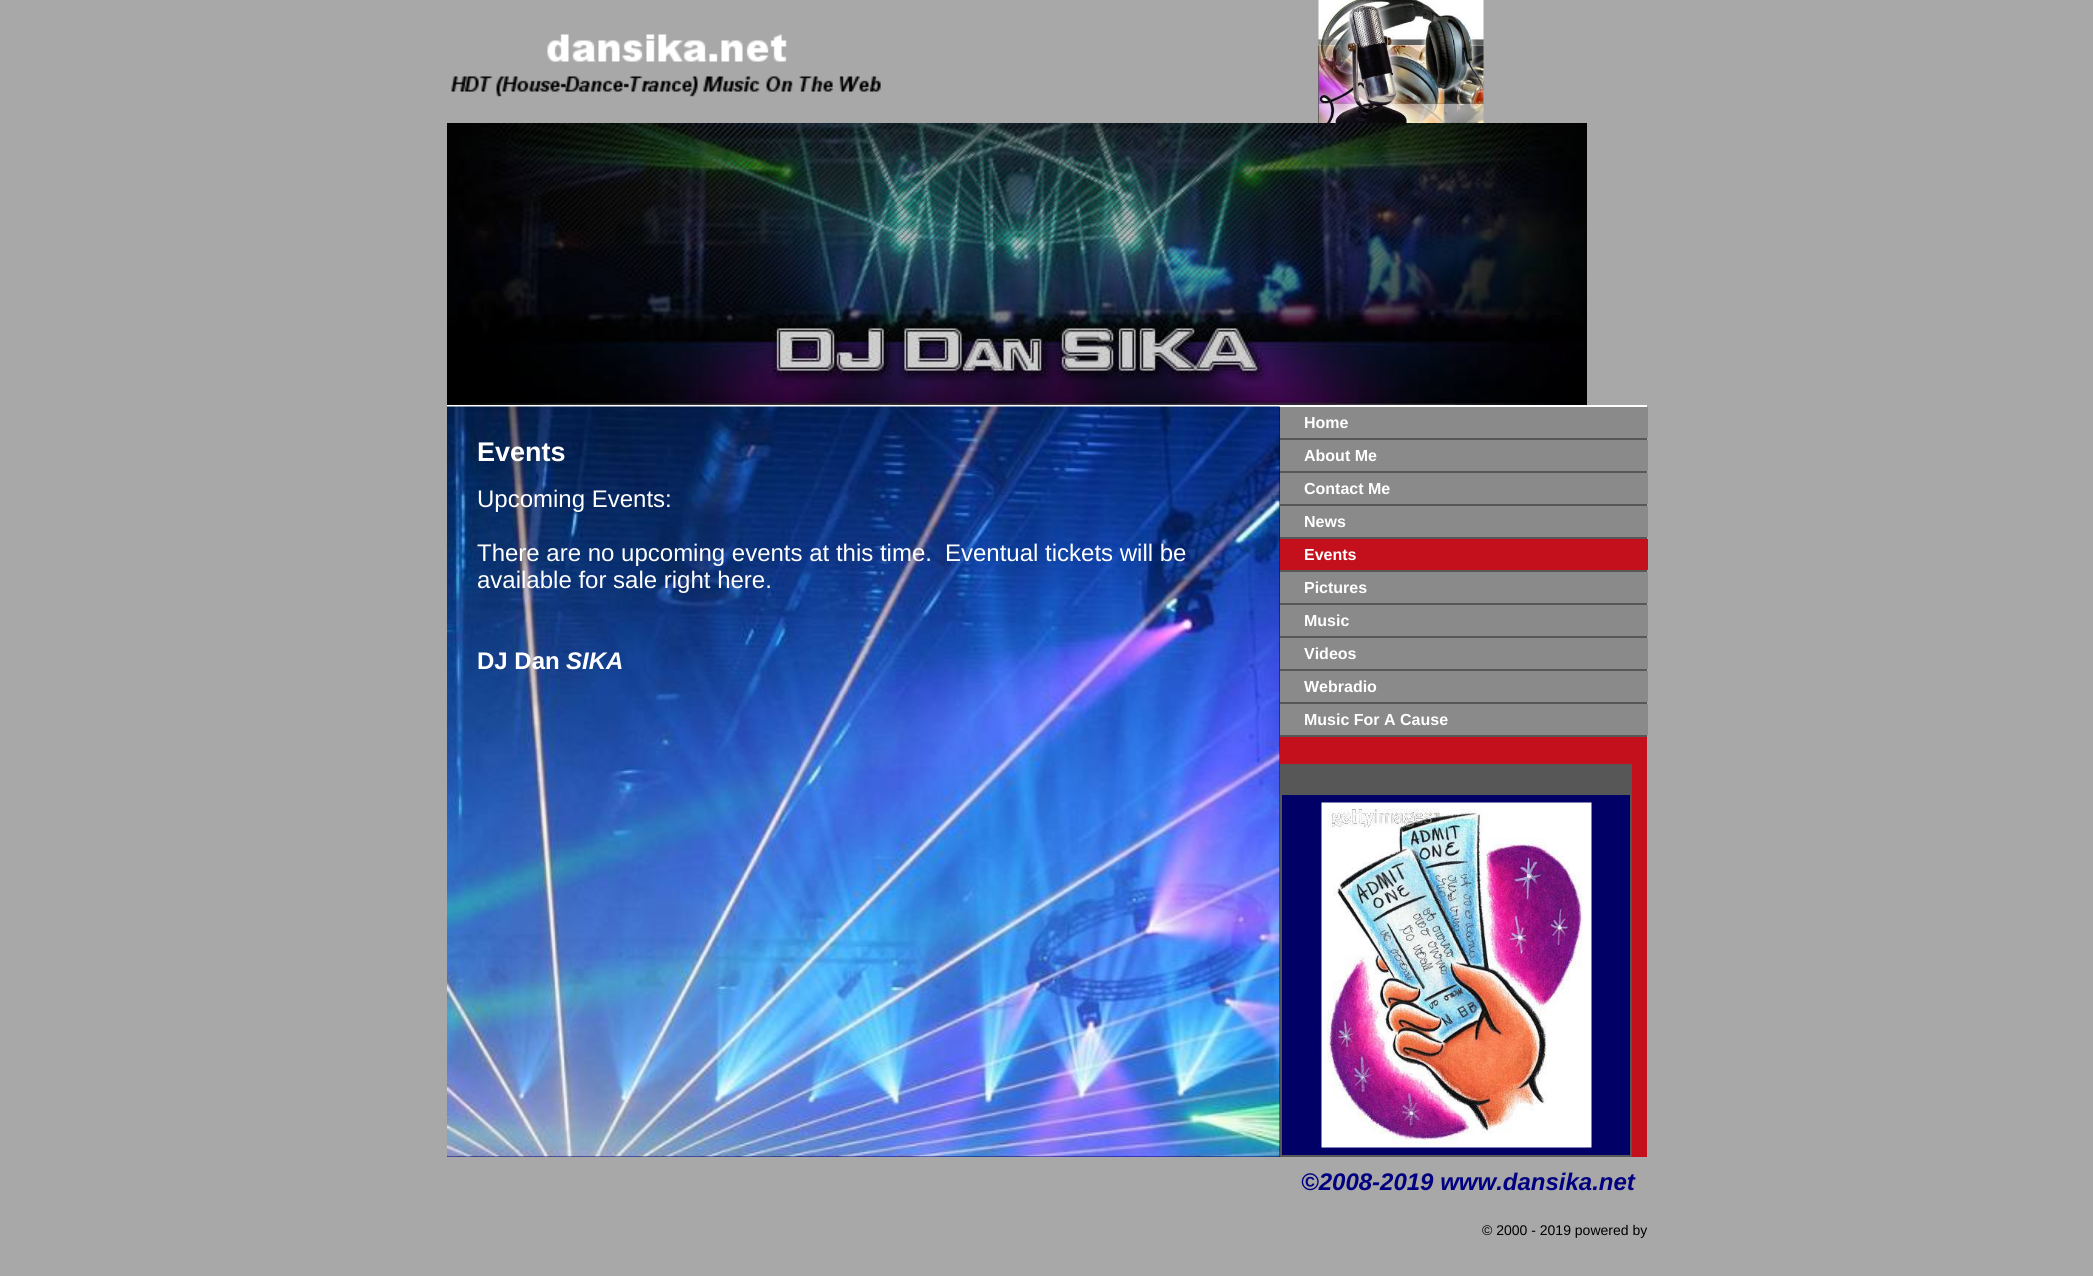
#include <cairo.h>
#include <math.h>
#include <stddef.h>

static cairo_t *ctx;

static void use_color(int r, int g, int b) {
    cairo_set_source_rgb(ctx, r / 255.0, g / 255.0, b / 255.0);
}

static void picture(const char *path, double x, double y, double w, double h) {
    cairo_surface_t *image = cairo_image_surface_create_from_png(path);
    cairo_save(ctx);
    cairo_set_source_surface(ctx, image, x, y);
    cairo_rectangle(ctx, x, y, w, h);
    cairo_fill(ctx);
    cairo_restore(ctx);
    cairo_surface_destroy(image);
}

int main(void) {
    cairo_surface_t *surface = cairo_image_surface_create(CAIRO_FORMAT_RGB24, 2093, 1276);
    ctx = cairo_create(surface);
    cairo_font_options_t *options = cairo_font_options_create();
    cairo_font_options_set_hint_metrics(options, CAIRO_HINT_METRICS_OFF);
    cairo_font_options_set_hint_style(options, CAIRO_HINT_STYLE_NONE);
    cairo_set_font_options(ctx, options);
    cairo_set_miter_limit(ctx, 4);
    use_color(168, 168, 168);
    cairo_paint(ctx);
    picture("img1.png", 451, 34, 430, 63);
    picture("img2.png", 1318, 0, 166, 123);
    picture("img3.png", 447, 123, 1140, 282);
    use_color(255, 255, 255);
    cairo_rectangle(ctx, 447, 405, 1200, 2);
    cairo_fill(ctx);
    use_color(0, 0, 102);
    cairo_rectangle(ctx, 447, 407, 833, 750);
    cairo_fill(ctx);
    picture("img4.png", 447, 406, 833, 751);
    cairo_select_font_face(ctx, "Liberation Sans", CAIRO_FONT_SLANT_NORMAL, CAIRO_FONT_WEIGHT_BOLD);
    cairo_set_font_size(ctx, 27);
    use_color(255, 255, 255);
    cairo_move_to(ctx, 477, 461);
    cairo_show_text(ctx, "Events");
    cairo_select_font_face(ctx, "Liberation Sans", CAIRO_FONT_SLANT_NORMAL, CAIRO_FONT_WEIGHT_NORMAL);
    cairo_set_font_size(ctx, 24);
    cairo_move_to(ctx, 477, 507);
    cairo_show_text(ctx, "Upcoming Events:");
    cairo_move_to(ctx, 477, 561);
    cairo_show_text(ctx, "There are no upcoming events at this time.");
    cairo_move_to(ctx, 945, 561);
    cairo_show_text(ctx, "Eventual tickets will be");
    cairo_move_to(ctx, 477, 588);
    cairo_show_text(ctx, "available for sale right here.");
    cairo_select_font_face(ctx, "Liberation Sans", CAIRO_FONT_SLANT_NORMAL, CAIRO_FONT_WEIGHT_BOLD);
    cairo_move_to(ctx, 477, 669);
    cairo_show_text(ctx, "DJ Dan");
    cairo_select_font_face(ctx, "Liberation Sans", CAIRO_FONT_SLANT_ITALIC, CAIRO_FONT_WEIGHT_BOLD);
    cairo_move_to(ctx, 566, 669);
    cairo_show_text(ctx, "SIKA");
    use_color(87, 87, 87);
    cairo_rectangle(ctx, 1280, 438, 367, 299);
    cairo_fill(ctx);
    use_color(138, 138, 138);
    cairo_rectangle(ctx, 1280, 407, 368, 31);
    cairo_fill(ctx);
    cairo_select_font_face(ctx, "Liberation Sans", CAIRO_FONT_SLANT_NORMAL, CAIRO_FONT_WEIGHT_BOLD);
    cairo_set_font_size(ctx, 16);
    use_color(255, 255, 255);
    cairo_move_to(ctx, 1304, 428);
    cairo_show_text(ctx, "Home");
    use_color(138, 138, 138);
    cairo_rectangle(ctx, 1280, 440, 368, 31);
    cairo_fill(ctx);
    use_color(255, 255, 255);
    cairo_move_to(ctx, 1304, 461);
    cairo_show_text(ctx, "About Me");
    use_color(138, 138, 138);
    cairo_rectangle(ctx, 1280, 473, 368, 31);
    cairo_fill(ctx);
    use_color(255, 255, 255);
    cairo_move_to(ctx, 1304, 494);
    cairo_show_text(ctx, "Contact Me");
    use_color(138, 138, 138);
    cairo_rectangle(ctx, 1280, 506, 368, 31);
    cairo_fill(ctx);
    use_color(255, 255, 255);
    cairo_move_to(ctx, 1304, 527);
    cairo_show_text(ctx, "News");
    use_color(196, 15, 29);
    cairo_rectangle(ctx, 1280, 539, 368, 31);
    cairo_fill(ctx);
    use_color(255, 255, 255);
    cairo_move_to(ctx, 1304, 560);
    cairo_show_text(ctx, "Events");
    use_color(138, 138, 138);
    cairo_rectangle(ctx, 1280, 572, 368, 31);
    cairo_fill(ctx);
    use_color(255, 255, 255);
    cairo_move_to(ctx, 1304, 593);
    cairo_show_text(ctx, "Pictures");
    use_color(138, 138, 138);
    cairo_rectangle(ctx, 1280, 605, 368, 31);
    cairo_fill(ctx);
    use_color(255, 255, 255);
    cairo_move_to(ctx, 1304, 626);
    cairo_show_text(ctx, "Music");
    use_color(138, 138, 138);
    cairo_rectangle(ctx, 1280, 638, 368, 31);
    cairo_fill(ctx);
    use_color(255, 255, 255);
    cairo_move_to(ctx, 1304, 659);
    cairo_show_text(ctx, "Videos");
    use_color(138, 138, 138);
    cairo_rectangle(ctx, 1280, 671, 368, 31);
    cairo_fill(ctx);
    use_color(255, 255, 255);
    cairo_move_to(ctx, 1304, 692);
    cairo_show_text(ctx, "Webradio");
    use_color(138, 138, 138);
    cairo_rectangle(ctx, 1280, 704, 368, 31);
    cairo_fill(ctx);
    use_color(255, 255, 255);
    cairo_move_to(ctx, 1304, 725);
    cairo_show_text(ctx, "Music For A Cause");
    use_color(196, 15, 29);
    cairo_rectangle(ctx, 1280, 737, 367, 420);
    cairo_fill(ctx);
    use_color(0, 0, 102);
    cairo_rectangle(ctx, 1282, 795, 348, 360);
    cairo_fill(ctx);
    cairo_rectangle(ctx, 1281, 765, 350, 391);
    use_color(87, 87, 87);
    cairo_stroke(ctx);
    cairo_rectangle(ctx, 1282, 766, 348, 29);
    cairo_fill(ctx);
    picture("img5.png", 1321, 802, 271, 346);
    cairo_select_font_face(ctx, "Liberation Sans", CAIRO_FONT_SLANT_ITALIC, CAIRO_FONT_WEIGHT_BOLD);
    cairo_set_font_size(ctx, 24);
    use_color(0, 0, 128);
    cairo_move_to(ctx, 1301, 1190);
    cairo_show_text(ctx, "©2008-2019 www.dansika.net");
    cairo_select_font_face(ctx, "Liberation Sans", CAIRO_FONT_SLANT_NORMAL, CAIRO_FONT_WEIGHT_NORMAL);
    cairo_set_font_size(ctx, 14);
    use_color(0, 0, 0);
    cairo_move_to(ctx, 1482, 1235);
    cairo_show_text(ctx, "© 2000 - 2019 powered by");
    cairo_surface_write_to_png(surface, "result.png");
    cairo_font_options_destroy(options);
    cairo_destroy(ctx);
    cairo_surface_destroy(surface);
    return 0;
}
